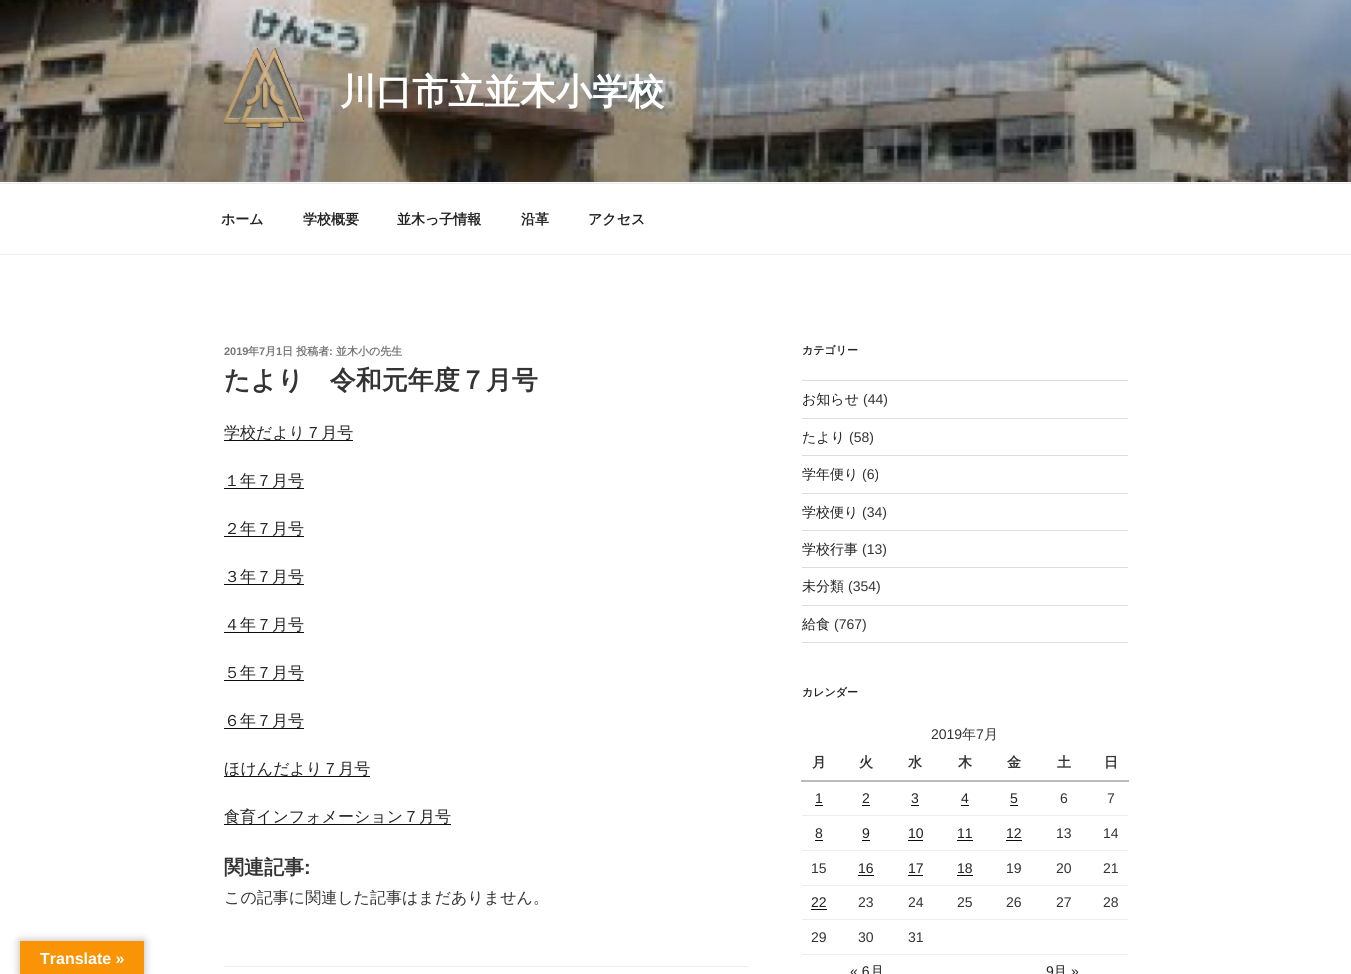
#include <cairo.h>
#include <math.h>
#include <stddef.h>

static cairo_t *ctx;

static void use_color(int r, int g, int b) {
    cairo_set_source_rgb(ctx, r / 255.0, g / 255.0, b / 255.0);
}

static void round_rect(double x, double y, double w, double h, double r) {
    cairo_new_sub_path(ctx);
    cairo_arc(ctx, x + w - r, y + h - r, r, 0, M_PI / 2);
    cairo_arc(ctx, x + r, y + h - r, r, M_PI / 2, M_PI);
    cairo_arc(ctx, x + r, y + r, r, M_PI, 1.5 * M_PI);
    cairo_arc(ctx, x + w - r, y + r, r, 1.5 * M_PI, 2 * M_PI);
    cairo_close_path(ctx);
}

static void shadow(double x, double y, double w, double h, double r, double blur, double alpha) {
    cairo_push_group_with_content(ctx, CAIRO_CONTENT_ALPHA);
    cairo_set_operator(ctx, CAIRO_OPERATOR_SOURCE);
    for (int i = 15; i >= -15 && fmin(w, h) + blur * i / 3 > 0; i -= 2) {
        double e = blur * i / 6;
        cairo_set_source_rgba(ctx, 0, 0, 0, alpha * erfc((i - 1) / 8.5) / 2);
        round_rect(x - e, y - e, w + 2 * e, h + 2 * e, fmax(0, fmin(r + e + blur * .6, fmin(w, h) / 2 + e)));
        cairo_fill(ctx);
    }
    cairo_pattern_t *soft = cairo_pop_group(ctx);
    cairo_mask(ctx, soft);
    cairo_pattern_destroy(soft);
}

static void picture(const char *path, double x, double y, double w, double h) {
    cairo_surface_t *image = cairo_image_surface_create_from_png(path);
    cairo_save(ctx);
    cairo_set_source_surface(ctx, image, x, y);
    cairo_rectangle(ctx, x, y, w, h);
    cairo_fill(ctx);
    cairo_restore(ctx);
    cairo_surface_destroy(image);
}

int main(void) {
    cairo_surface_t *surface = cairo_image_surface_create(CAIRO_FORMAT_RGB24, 1351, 974);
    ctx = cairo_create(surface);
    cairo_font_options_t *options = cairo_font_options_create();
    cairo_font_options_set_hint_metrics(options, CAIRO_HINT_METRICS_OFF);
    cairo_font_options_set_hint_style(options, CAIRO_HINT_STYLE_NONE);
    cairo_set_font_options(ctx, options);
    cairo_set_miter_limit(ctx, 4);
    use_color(255, 255, 255);
    cairo_paint(ctx);
    use_color(0, 0, 0);
    shadow(20, 941, 124, 33, 0, 4.5, 0.3);
    use_color(248, 148, 6);
    cairo_rectangle(ctx, 20, 941, 124, 33);
    cairo_fill(ctx);
    cairo_select_font_face(ctx, "Liberation Sans", CAIRO_FONT_SLANT_NORMAL, CAIRO_FONT_WEIGHT_BOLD);
    cairo_set_font_size(ctx, 16);
    use_color(255, 255, 255);
    cairo_move_to(ctx, 40, 964);
    cairo_show_text(ctx, "Translate »");
    use_color(250, 250, 250);
    cairo_rectangle(ctx, 0, 182, 1351, 1);
    cairo_fill(ctx);
    picture("img1.png", 0, 0, 1351, 182);
    picture("img2.png", 224, 48, 80, 80);
    cairo_select_font_face(ctx, "WenQuanYi Zen Hei", CAIRO_FONT_SLANT_NORMAL, CAIRO_FONT_WEIGHT_BOLD);
    cairo_set_font_size(ctx, 36);
    use_color(255, 255, 255);
    cairo_move_to(ctx, 340, 104);
    cairo_show_text(ctx, "川口市立並木小学校");
    use_color(238, 238, 238);
    cairo_rectangle(ctx, 0, 183, 1351, 1);
    cairo_fill(ctx);
    cairo_rectangle(ctx, 0, 254, 1351, 1);
    cairo_fill(ctx);
    cairo_set_font_size(ctx, 14);
    use_color(34, 34, 34);
    cairo_move_to(ctx, 221, 224);
    cairo_show_text(ctx, "ホーム");
    cairo_move_to(ctx, 303, 224);
    cairo_show_text(ctx, "学校概要");
    cairo_move_to(ctx, 397, 224);
    cairo_show_text(ctx, "並木っ子情報");
    cairo_move_to(ctx, 521, 224);
    cairo_show_text(ctx, "沿革");
    cairo_move_to(ctx, 588, 224);
    cairo_show_text(ctx, "アクセス");
    cairo_select_font_face(ctx, "Liberation Sans", CAIRO_FONT_SLANT_NORMAL, CAIRO_FONT_WEIGHT_BOLD);
    cairo_set_font_size(ctx, 11);
    use_color(118, 118, 118);
    cairo_move_to(ctx, 224, 355);
    cairo_show_text(ctx, "2019");
    cairo_select_font_face(ctx, "WenQuanYi Zen Hei", CAIRO_FONT_SLANT_NORMAL, CAIRO_FONT_WEIGHT_BOLD);
    cairo_move_to(ctx, 248, 355);
    cairo_show_text(ctx, "年");
    cairo_select_font_face(ctx, "Liberation Sans", CAIRO_FONT_SLANT_NORMAL, CAIRO_FONT_WEIGHT_BOLD);
    cairo_move_to(ctx, 259, 355);
    cairo_show_text(ctx, "7");
    cairo_select_font_face(ctx, "WenQuanYi Zen Hei", CAIRO_FONT_SLANT_NORMAL, CAIRO_FONT_WEIGHT_BOLD);
    cairo_move_to(ctx, 265, 355);
    cairo_show_text(ctx, "月");
    cairo_select_font_face(ctx, "Liberation Sans", CAIRO_FONT_SLANT_NORMAL, CAIRO_FONT_WEIGHT_BOLD);
    cairo_move_to(ctx, 276, 355);
    cairo_show_text(ctx, "1");
    cairo_select_font_face(ctx, "WenQuanYi Zen Hei", CAIRO_FONT_SLANT_NORMAL, CAIRO_FONT_WEIGHT_BOLD);
    cairo_move_to(ctx, 282, 355);
    cairo_show_text(ctx, "日 投稿者");
    cairo_select_font_face(ctx, "Liberation Sans", CAIRO_FONT_SLANT_NORMAL, CAIRO_FONT_WEIGHT_BOLD);
    cairo_move_to(ctx, 329, 355);
    cairo_show_text(ctx, ":");
    cairo_select_font_face(ctx, "WenQuanYi Zen Hei", CAIRO_FONT_SLANT_NORMAL, CAIRO_FONT_WEIGHT_BOLD);
    cairo_move_to(ctx, 336, 355);
    cairo_show_text(ctx, "並木小の先生");
    cairo_set_font_size(ctx, 26);
    use_color(51, 51, 51);
    cairo_move_to(ctx, 224, 389);
    cairo_show_text(ctx, "たより　令和元年度７月号");
    use_color(15, 15, 15);
    cairo_rectangle(ctx, 224, 440, 129, 1);
    cairo_fill(ctx);
    cairo_select_font_face(ctx, "WenQuanYi Zen Hei Medium", CAIRO_FONT_SLANT_NORMAL, CAIRO_FONT_WEIGHT_NORMAL);
    cairo_set_font_size(ctx, 16);
    use_color(34, 34, 34);
    cairo_move_to(ctx, 224, 438);
    cairo_show_text(ctx, "学校だより７月号");
    use_color(15, 15, 15);
    cairo_rectangle(ctx, 224, 488, 80, 1);
    cairo_fill(ctx);
    use_color(34, 34, 34);
    cairo_move_to(ctx, 224, 486);
    cairo_show_text(ctx, "１年７月号");
    use_color(15, 15, 15);
    cairo_rectangle(ctx, 224, 536, 80, 1);
    cairo_fill(ctx);
    use_color(34, 34, 34);
    cairo_move_to(ctx, 224, 534);
    cairo_show_text(ctx, "２年７月号");
    use_color(15, 15, 15);
    cairo_rectangle(ctx, 224, 584, 80, 1);
    cairo_fill(ctx);
    use_color(34, 34, 34);
    cairo_move_to(ctx, 224, 582);
    cairo_show_text(ctx, "３年７月号");
    use_color(15, 15, 15);
    cairo_rectangle(ctx, 224, 632, 80, 1);
    cairo_fill(ctx);
    use_color(34, 34, 34);
    cairo_move_to(ctx, 224, 630);
    cairo_show_text(ctx, "４年７月号");
    use_color(15, 15, 15);
    cairo_rectangle(ctx, 224, 680, 80, 1);
    cairo_fill(ctx);
    use_color(34, 34, 34);
    cairo_move_to(ctx, 224, 678);
    cairo_show_text(ctx, "５年７月号");
    use_color(15, 15, 15);
    cairo_rectangle(ctx, 224, 728, 80, 1);
    cairo_fill(ctx);
    use_color(34, 34, 34);
    cairo_move_to(ctx, 224, 726);
    cairo_show_text(ctx, "６年７月号");
    use_color(15, 15, 15);
    cairo_rectangle(ctx, 224, 776, 146, 1);
    cairo_fill(ctx);
    use_color(34, 34, 34);
    cairo_move_to(ctx, 224, 774);
    cairo_show_text(ctx, "ほけんだより７月号");
    use_color(15, 15, 15);
    cairo_rectangle(ctx, 224, 824, 227, 1);
    cairo_fill(ctx);
    use_color(34, 34, 34);
    cairo_move_to(ctx, 224, 822);
    cairo_show_text(ctx, "食育インフォメーション７月号");
    cairo_select_font_face(ctx, "WenQuanYi Zen Hei", CAIRO_FONT_SLANT_NORMAL, CAIRO_FONT_WEIGHT_BOLD);
    cairo_set_font_size(ctx, 20);
    use_color(51, 51, 51);
    cairo_move_to(ctx, 224, 874);
    cairo_show_text(ctx, "関連記事");
    cairo_select_font_face(ctx, "Liberation Sans", CAIRO_FONT_SLANT_NORMAL, CAIRO_FONT_WEIGHT_BOLD);
    cairo_move_to(ctx, 304, 874);
    cairo_show_text(ctx, ":");
    cairo_select_font_face(ctx, "WenQuanYi Zen Hei Medium", CAIRO_FONT_SLANT_NORMAL, CAIRO_FONT_WEIGHT_NORMAL);
    cairo_set_font_size(ctx, 16);
    cairo_move_to(ctx, 224, 903);
    cairo_show_text(ctx, "この記事に関連した記事はまだありません。");
    use_color(238, 238, 238);
    cairo_rectangle(ctx, 224, 966, 524, 1);
    cairo_fill(ctx);
    cairo_select_font_face(ctx, "WenQuanYi Zen Hei", CAIRO_FONT_SLANT_NORMAL, CAIRO_FONT_WEIGHT_BOLD);
    cairo_set_font_size(ctx, 11);
    use_color(34, 34, 34);
    cairo_move_to(ctx, 802, 354);
    cairo_show_text(ctx, "カテゴリー");
    use_color(221, 221, 221);
    cairo_rectangle(ctx, 802, 380, 326, 1);
    cairo_fill(ctx);
    cairo_rectangle(ctx, 802, 418, 326, 1);
    cairo_fill(ctx);
    cairo_select_font_face(ctx, "WenQuanYi Zen Hei Medium", CAIRO_FONT_SLANT_NORMAL, CAIRO_FONT_WEIGHT_NORMAL);
    cairo_set_font_size(ctx, 14);
    use_color(34, 34, 34);
    cairo_move_to(ctx, 802, 404);
    cairo_show_text(ctx, "お知らせ");
    cairo_select_font_face(ctx, "Liberation Sans", CAIRO_FONT_SLANT_NORMAL, CAIRO_FONT_WEIGHT_NORMAL);
    use_color(51, 51, 51);
    cairo_move_to(ctx, 863, 404);
    cairo_show_text(ctx, "(44)");
    use_color(221, 221, 221);
    cairo_rectangle(ctx, 802, 455, 326, 1);
    cairo_fill(ctx);
    cairo_select_font_face(ctx, "WenQuanYi Zen Hei Medium", CAIRO_FONT_SLANT_NORMAL, CAIRO_FONT_WEIGHT_NORMAL);
    use_color(34, 34, 34);
    cairo_move_to(ctx, 802, 442);
    cairo_show_text(ctx, "たより");
    cairo_select_font_face(ctx, "Liberation Sans", CAIRO_FONT_SLANT_NORMAL, CAIRO_FONT_WEIGHT_NORMAL);
    use_color(51, 51, 51);
    cairo_move_to(ctx, 849, 442);
    cairo_show_text(ctx, "(58)");
    use_color(221, 221, 221);
    cairo_rectangle(ctx, 802, 493, 326, 1);
    cairo_fill(ctx);
    cairo_select_font_face(ctx, "WenQuanYi Zen Hei Medium", CAIRO_FONT_SLANT_NORMAL, CAIRO_FONT_WEIGHT_NORMAL);
    use_color(34, 34, 34);
    cairo_move_to(ctx, 802, 479);
    cairo_show_text(ctx, "学年便り");
    cairo_select_font_face(ctx, "Liberation Sans", CAIRO_FONT_SLANT_NORMAL, CAIRO_FONT_WEIGHT_NORMAL);
    use_color(51, 51, 51);
    cairo_move_to(ctx, 862, 479);
    cairo_show_text(ctx, "(6)");
    use_color(221, 221, 221);
    cairo_rectangle(ctx, 802, 530, 326, 1);
    cairo_fill(ctx);
    cairo_select_font_face(ctx, "WenQuanYi Zen Hei Medium", CAIRO_FONT_SLANT_NORMAL, CAIRO_FONT_WEIGHT_NORMAL);
    use_color(34, 34, 34);
    cairo_move_to(ctx, 802, 517);
    cairo_show_text(ctx, "学校便り");
    cairo_select_font_face(ctx, "Liberation Sans", CAIRO_FONT_SLANT_NORMAL, CAIRO_FONT_WEIGHT_NORMAL);
    use_color(51, 51, 51);
    cairo_move_to(ctx, 862, 517);
    cairo_show_text(ctx, "(34)");
    use_color(221, 221, 221);
    cairo_rectangle(ctx, 802, 567, 326, 1);
    cairo_fill(ctx);
    cairo_select_font_face(ctx, "WenQuanYi Zen Hei Medium", CAIRO_FONT_SLANT_NORMAL, CAIRO_FONT_WEIGHT_NORMAL);
    use_color(34, 34, 34);
    cairo_move_to(ctx, 802, 554);
    cairo_show_text(ctx, "学校行事");
    cairo_select_font_face(ctx, "Liberation Sans", CAIRO_FONT_SLANT_NORMAL, CAIRO_FONT_WEIGHT_NORMAL);
    use_color(51, 51, 51);
    cairo_move_to(ctx, 862, 554);
    cairo_show_text(ctx, "(13)");
    use_color(221, 221, 221);
    cairo_rectangle(ctx, 802, 605, 326, 1);
    cairo_fill(ctx);
    cairo_select_font_face(ctx, "WenQuanYi Zen Hei Medium", CAIRO_FONT_SLANT_NORMAL, CAIRO_FONT_WEIGHT_NORMAL);
    use_color(34, 34, 34);
    cairo_move_to(ctx, 802, 591);
    cairo_show_text(ctx, "未分類");
    cairo_select_font_face(ctx, "Liberation Sans", CAIRO_FONT_SLANT_NORMAL, CAIRO_FONT_WEIGHT_NORMAL);
    use_color(51, 51, 51);
    cairo_move_to(ctx, 848, 591);
    cairo_show_text(ctx, "(354)");
    use_color(221, 221, 221);
    cairo_rectangle(ctx, 802, 642, 326, 1);
    cairo_fill(ctx);
    cairo_select_font_face(ctx, "WenQuanYi Zen Hei Medium", CAIRO_FONT_SLANT_NORMAL, CAIRO_FONT_WEIGHT_NORMAL);
    use_color(34, 34, 34);
    cairo_move_to(ctx, 802, 629);
    cairo_show_text(ctx, "給食");
    cairo_select_font_face(ctx, "Liberation Sans", CAIRO_FONT_SLANT_NORMAL, CAIRO_FONT_WEIGHT_NORMAL);
    use_color(51, 51, 51);
    cairo_move_to(ctx, 834, 629);
    cairo_show_text(ctx, "(767)");
    cairo_select_font_face(ctx, "WenQuanYi Zen Hei", CAIRO_FONT_SLANT_NORMAL, CAIRO_FONT_WEIGHT_BOLD);
    cairo_set_font_size(ctx, 11);
    use_color(34, 34, 34);
    cairo_move_to(ctx, 802, 696);
    cairo_show_text(ctx, "カレンダー");
    cairo_select_font_face(ctx, "Liberation Sans", CAIRO_FONT_SLANT_NORMAL, CAIRO_FONT_WEIGHT_NORMAL);
    cairo_set_font_size(ctx, 14);
    use_color(51, 51, 51);
    cairo_move_to(ctx, 931, 739);
    cairo_show_text(ctx, "2019");
    cairo_select_font_face(ctx, "WenQuanYi Zen Hei Medium", CAIRO_FONT_SLANT_NORMAL, CAIRO_FONT_WEIGHT_NORMAL);
    cairo_move_to(ctx, 962, 739);
    cairo_show_text(ctx, "年");
    cairo_select_font_face(ctx, "Liberation Sans", CAIRO_FONT_SLANT_NORMAL, CAIRO_FONT_WEIGHT_NORMAL);
    cairo_move_to(ctx, 976, 739);
    cairo_show_text(ctx, "7");
    cairo_select_font_face(ctx, "WenQuanYi Zen Hei Medium", CAIRO_FONT_SLANT_NORMAL, CAIRO_FONT_WEIGHT_NORMAL);
    cairo_move_to(ctx, 984, 739);
    cairo_show_text(ctx, "月");
    cairo_select_font_face(ctx, "WenQuanYi Zen Hei", CAIRO_FONT_SLANT_NORMAL, CAIRO_FONT_WEIGHT_BOLD);
    cairo_move_to(ctx, 812, 767);
    cairo_show_text(ctx, "月");
    cairo_move_to(ctx, 859, 767);
    cairo_show_text(ctx, "火");
    cairo_move_to(ctx, 908, 767);
    cairo_show_text(ctx, "水");
    cairo_move_to(ctx, 958, 767);
    cairo_show_text(ctx, "木");
    cairo_move_to(ctx, 1007, 767);
    cairo_show_text(ctx, "金");
    cairo_move_to(ctx, 1057, 767);
    cairo_show_text(ctx, "土");
    use_color(187, 187, 187);
    cairo_rectangle(ctx, 801, 780, 328, 2);
    cairo_fill(ctx);
    use_color(51, 51, 51);
    cairo_move_to(ctx, 1104, 767);
    cairo_show_text(ctx, "日");
    use_color(238, 238, 238);
    cairo_rectangle(ctx, 802, 815, 326, 1);
    cairo_fill(ctx);
    cairo_select_font_face(ctx, "Liberation Sans", CAIRO_FONT_SLANT_NORMAL, CAIRO_FONT_WEIGHT_NORMAL);
    use_color(34, 34, 34);
    cairo_move_to(ctx, 815, 803);
    cairo_show_text(ctx, "1");
    use_color(15, 15, 15);
    cairo_rectangle(ctx, 815, 805, 8, 1);
    cairo_fill(ctx);
    use_color(34, 34, 34);
    cairo_move_to(ctx, 862, 803);
    cairo_show_text(ctx, "2");
    use_color(15, 15, 15);
    cairo_rectangle(ctx, 862, 805, 8, 1);
    cairo_fill(ctx);
    use_color(34, 34, 34);
    cairo_move_to(ctx, 911, 803);
    cairo_show_text(ctx, "3");
    use_color(15, 15, 15);
    cairo_rectangle(ctx, 911, 805, 8, 1);
    cairo_fill(ctx);
    use_color(34, 34, 34);
    cairo_move_to(ctx, 961, 803);
    cairo_show_text(ctx, "4");
    use_color(15, 15, 15);
    cairo_rectangle(ctx, 961, 805, 8, 1);
    cairo_fill(ctx);
    use_color(34, 34, 34);
    cairo_move_to(ctx, 1010, 803);
    cairo_show_text(ctx, "5");
    use_color(15, 15, 15);
    cairo_rectangle(ctx, 1010, 805, 8, 1);
    cairo_fill(ctx);
    use_color(51, 51, 51);
    cairo_move_to(ctx, 1060, 803);
    cairo_show_text(ctx, "6");
    cairo_move_to(ctx, 1107, 803);
    cairo_show_text(ctx, "7");
    use_color(238, 238, 238);
    cairo_rectangle(ctx, 802, 850, 326, 1);
    cairo_fill(ctx);
    use_color(34, 34, 34);
    cairo_move_to(ctx, 815, 838);
    cairo_show_text(ctx, "8");
    use_color(15, 15, 15);
    cairo_rectangle(ctx, 815, 840, 8, 1);
    cairo_fill(ctx);
    use_color(34, 34, 34);
    cairo_move_to(ctx, 862, 838);
    cairo_show_text(ctx, "9");
    use_color(15, 15, 15);
    cairo_rectangle(ctx, 862, 840, 8, 1);
    cairo_fill(ctx);
    use_color(34, 34, 34);
    cairo_move_to(ctx, 908, 838);
    cairo_show_text(ctx, "10");
    use_color(15, 15, 15);
    cairo_rectangle(ctx, 908, 840, 15, 1);
    cairo_fill(ctx);
    use_color(34, 34, 34);
    cairo_move_to(ctx, 957, 838);
    cairo_show_text(ctx, "11");
    use_color(15, 15, 15);
    cairo_rectangle(ctx, 957, 840, 16, 1);
    cairo_fill(ctx);
    use_color(34, 34, 34);
    cairo_move_to(ctx, 1006, 838);
    cairo_show_text(ctx, "12");
    use_color(15, 15, 15);
    cairo_rectangle(ctx, 1006, 840, 16, 1);
    cairo_fill(ctx);
    use_color(51, 51, 51);
    cairo_move_to(ctx, 1056, 838);
    cairo_show_text(ctx, "13");
    cairo_move_to(ctx, 1103, 838);
    cairo_show_text(ctx, "14");
    use_color(238, 238, 238);
    cairo_rectangle(ctx, 802, 885, 326, 1);
    cairo_fill(ctx);
    use_color(51, 51, 51);
    cairo_move_to(ctx, 811, 873);
    cairo_show_text(ctx, "15");
    use_color(34, 34, 34);
    cairo_move_to(ctx, 858, 873);
    cairo_show_text(ctx, "16");
    use_color(15, 15, 15);
    cairo_rectangle(ctx, 858, 875, 16, 1);
    cairo_fill(ctx);
    use_color(34, 34, 34);
    cairo_move_to(ctx, 908, 873);
    cairo_show_text(ctx, "17");
    use_color(15, 15, 15);
    cairo_rectangle(ctx, 908, 875, 15, 1);
    cairo_fill(ctx);
    use_color(34, 34, 34);
    cairo_move_to(ctx, 957, 873);
    cairo_show_text(ctx, "18");
    use_color(15, 15, 15);
    cairo_rectangle(ctx, 957, 875, 16, 1);
    cairo_fill(ctx);
    use_color(51, 51, 51);
    cairo_move_to(ctx, 1006, 873);
    cairo_show_text(ctx, "19");
    cairo_move_to(ctx, 1056, 873);
    cairo_show_text(ctx, "20");
    cairo_move_to(ctx, 1103, 873);
    cairo_show_text(ctx, "21");
    use_color(238, 238, 238);
    cairo_rectangle(ctx, 802, 919, 326, 1);
    cairo_fill(ctx);
    use_color(34, 34, 34);
    cairo_move_to(ctx, 811, 907);
    cairo_show_text(ctx, "22");
    use_color(15, 15, 15);
    cairo_rectangle(ctx, 811, 909, 16, 1);
    cairo_fill(ctx);
    use_color(51, 51, 51);
    cairo_move_to(ctx, 858, 907);
    cairo_show_text(ctx, "23");
    cairo_move_to(ctx, 908, 907);
    cairo_show_text(ctx, "24");
    cairo_move_to(ctx, 957, 907);
    cairo_show_text(ctx, "25");
    cairo_move_to(ctx, 1006, 907);
    cairo_show_text(ctx, "26");
    cairo_move_to(ctx, 1056, 907);
    cairo_show_text(ctx, "27");
    cairo_move_to(ctx, 1103, 907);
    cairo_show_text(ctx, "28");
    use_color(238, 238, 238);
    cairo_rectangle(ctx, 802, 954, 326, 1);
    cairo_fill(ctx);
    use_color(51, 51, 51);
    cairo_move_to(ctx, 811, 942);
    cairo_show_text(ctx, "29");
    cairo_move_to(ctx, 858, 942);
    cairo_show_text(ctx, "30");
    cairo_move_to(ctx, 908, 942);
    cairo_show_text(ctx, "31");
    use_color(34, 34, 34);
    cairo_move_to(ctx, 850, 976);
    cairo_show_text(ctx, "« 6");
    cairo_select_font_face(ctx, "WenQuanYi Zen Hei Medium", CAIRO_FONT_SLANT_NORMAL, CAIRO_FONT_WEIGHT_NORMAL);
    cairo_move_to(ctx, 870, 976);
    cairo_show_text(ctx, "月");
    cairo_select_font_face(ctx, "Liberation Sans", CAIRO_FONT_SLANT_NORMAL, CAIRO_FONT_WEIGHT_NORMAL);
    cairo_move_to(ctx, 1046, 976);
    cairo_show_text(ctx, "9");
    cairo_select_font_face(ctx, "WenQuanYi Zen Hei Medium", CAIRO_FONT_SLANT_NORMAL, CAIRO_FONT_WEIGHT_NORMAL);
    cairo_move_to(ctx, 1053, 976);
    cairo_show_text(ctx, "月");
    cairo_select_font_face(ctx, "Liberation Sans", CAIRO_FONT_SLANT_NORMAL, CAIRO_FONT_WEIGHT_NORMAL);
    cairo_move_to(ctx, 1071, 976);
    cairo_show_text(ctx, "»");
    cairo_surface_write_to_png(surface, "result.png");
    cairo_font_options_destroy(options);
    cairo_destroy(ctx);
    cairo_surface_destroy(surface);
    return 0;
}
